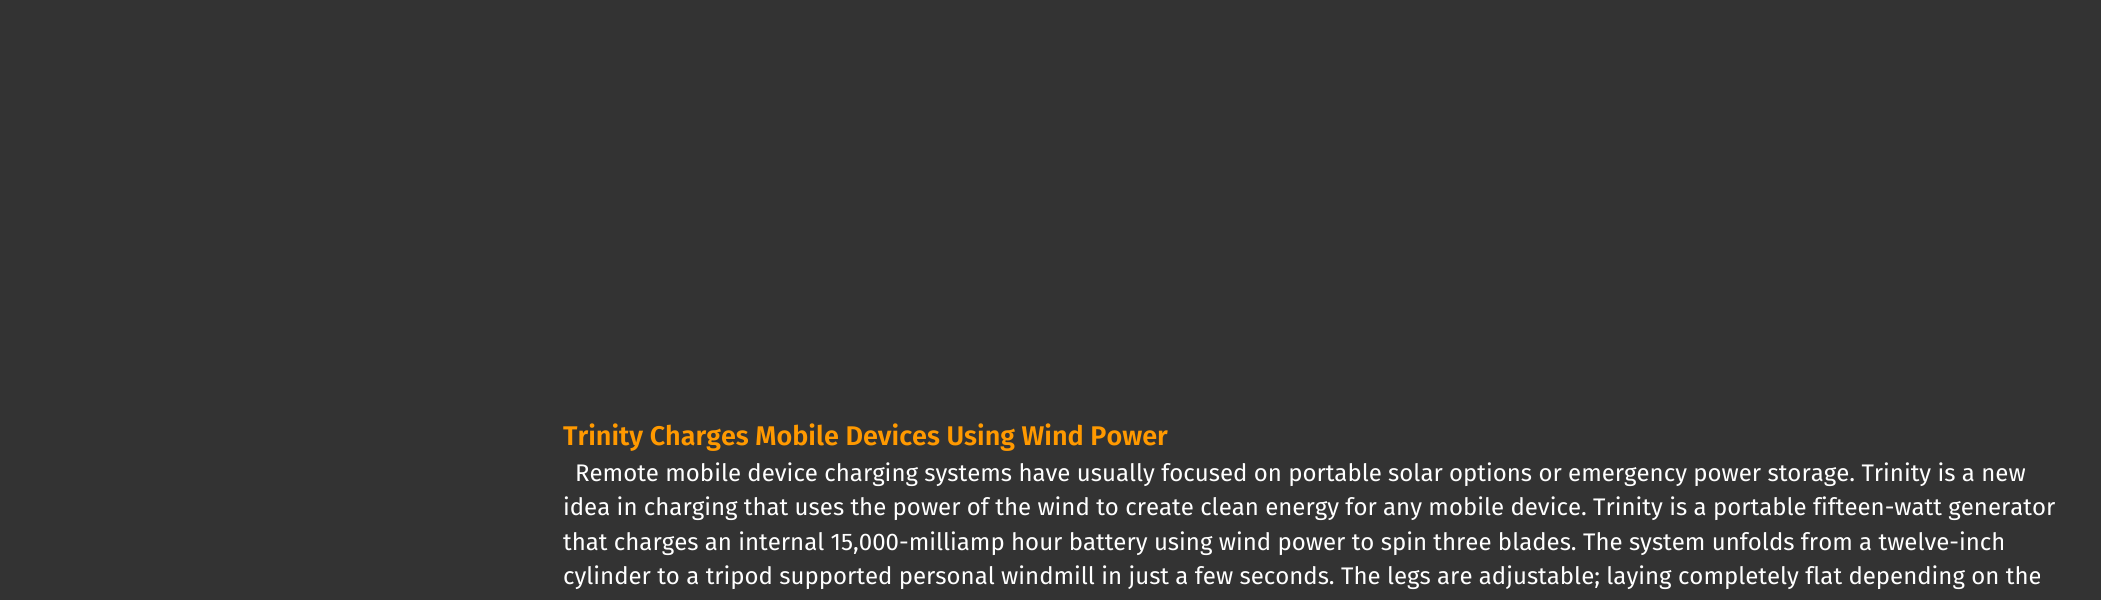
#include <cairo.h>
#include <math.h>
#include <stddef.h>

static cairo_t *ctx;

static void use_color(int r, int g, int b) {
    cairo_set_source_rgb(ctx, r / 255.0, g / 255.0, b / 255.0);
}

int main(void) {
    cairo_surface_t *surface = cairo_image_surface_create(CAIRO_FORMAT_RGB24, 2101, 600);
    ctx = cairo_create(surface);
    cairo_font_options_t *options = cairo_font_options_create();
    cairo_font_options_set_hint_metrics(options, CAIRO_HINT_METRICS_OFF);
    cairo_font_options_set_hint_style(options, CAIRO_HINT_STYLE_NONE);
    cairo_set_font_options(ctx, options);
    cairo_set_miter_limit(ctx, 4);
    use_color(51, 51, 51);
    cairo_paint(ctx);
    cairo_select_font_face(ctx, "Fira Sans SemiBold", CAIRO_FONT_SLANT_NORMAL, CAIRO_FONT_WEIGHT_NORMAL);
    cairo_set_font_size(ctx, 27);
    use_color(255, 153, 0);
    cairo_move_to(ctx, 563, 445);
    cairo_show_text(ctx, "Trinity Charges Mobile Devices Using Wind Power");
    cairo_select_font_face(ctx, "Fira Sans", CAIRO_FONT_SLANT_NORMAL, CAIRO_FONT_WEIGHT_NORMAL);
    cairo_set_font_size(ctx, 24);
    use_color(255, 255, 255);
    cairo_move_to(ctx, 575, 481);
    cairo_show_text(ctx, "Remote mobile device charging systems have usually focused on portable solar options or emergency power storage. Trinity is a new");
    cairo_move_to(ctx, 563, 515);
    cairo_show_text(ctx, "idea in charging that uses the power of the wind to create clean energy for any mobile device. Trinity is a portable fifteen-watt generator");
    cairo_move_to(ctx, 563, 550);
    cairo_show_text(ctx, "that charges an internal 15,000-milliamp hour battery using wind power to spin three blades. The system unfolds from a twelve-inch");
    cairo_move_to(ctx, 563, 584);
    cairo_show_text(ctx, "cylinder to a tripod supported personal windmill in just a few seconds. The legs are adjustable; laying completely flat depending on the");
    cairo_surface_write_to_png(surface, "result.png");
    cairo_font_options_destroy(options);
    cairo_destroy(ctx);
    cairo_surface_destroy(surface);
    return 0;
}
